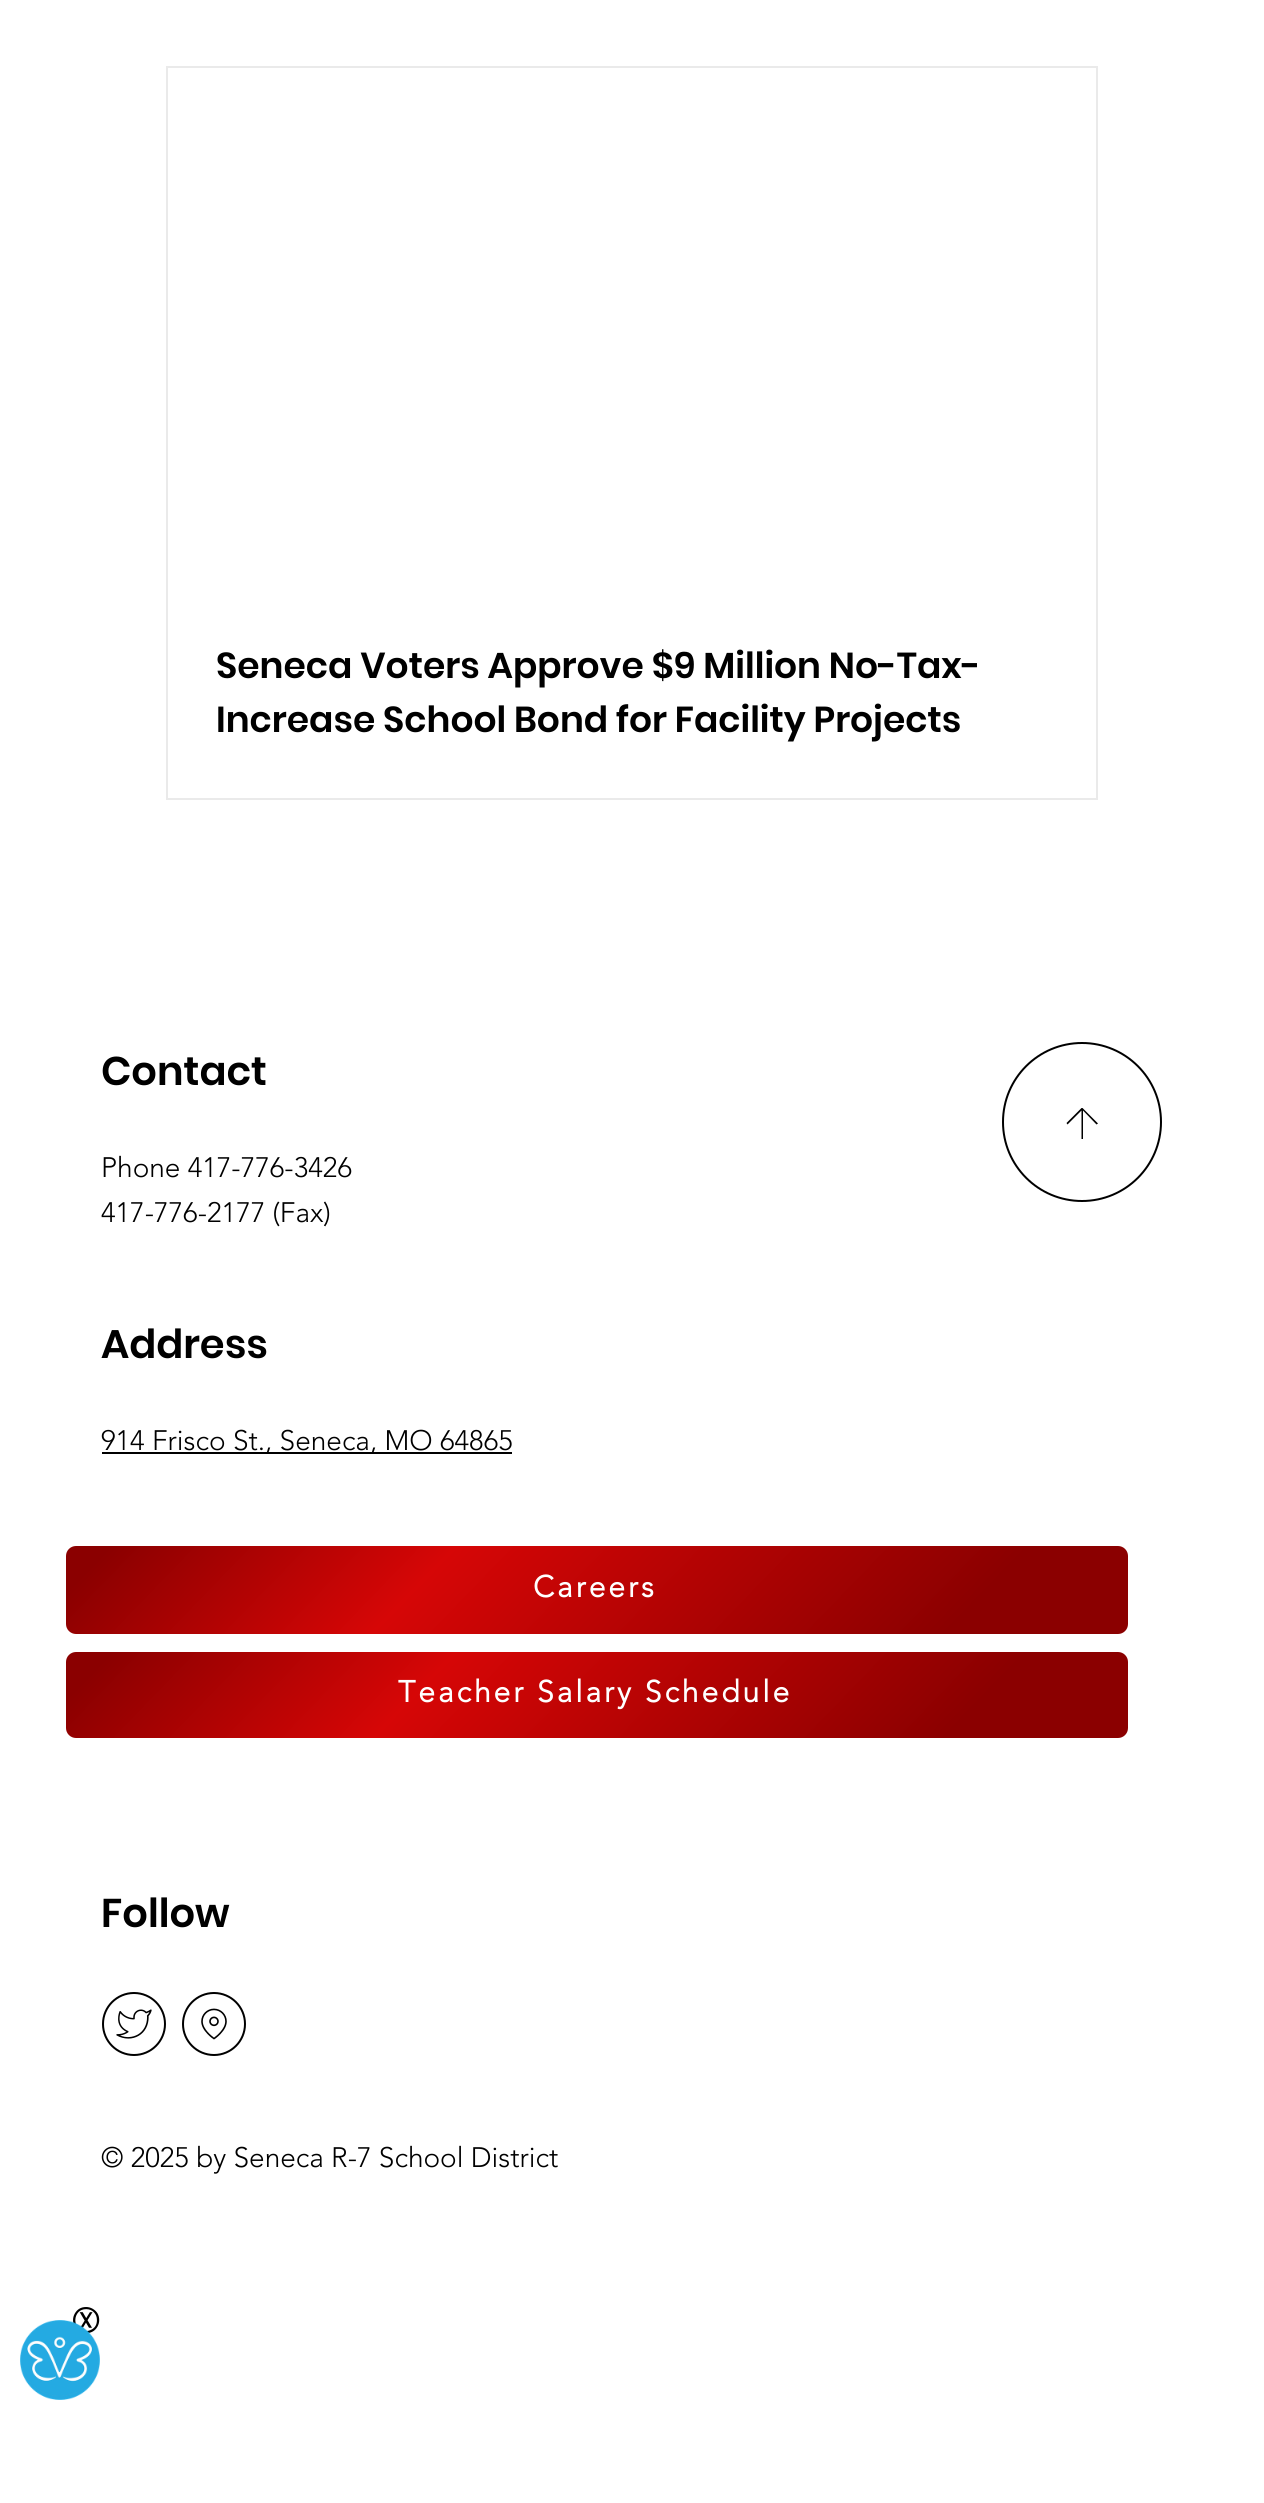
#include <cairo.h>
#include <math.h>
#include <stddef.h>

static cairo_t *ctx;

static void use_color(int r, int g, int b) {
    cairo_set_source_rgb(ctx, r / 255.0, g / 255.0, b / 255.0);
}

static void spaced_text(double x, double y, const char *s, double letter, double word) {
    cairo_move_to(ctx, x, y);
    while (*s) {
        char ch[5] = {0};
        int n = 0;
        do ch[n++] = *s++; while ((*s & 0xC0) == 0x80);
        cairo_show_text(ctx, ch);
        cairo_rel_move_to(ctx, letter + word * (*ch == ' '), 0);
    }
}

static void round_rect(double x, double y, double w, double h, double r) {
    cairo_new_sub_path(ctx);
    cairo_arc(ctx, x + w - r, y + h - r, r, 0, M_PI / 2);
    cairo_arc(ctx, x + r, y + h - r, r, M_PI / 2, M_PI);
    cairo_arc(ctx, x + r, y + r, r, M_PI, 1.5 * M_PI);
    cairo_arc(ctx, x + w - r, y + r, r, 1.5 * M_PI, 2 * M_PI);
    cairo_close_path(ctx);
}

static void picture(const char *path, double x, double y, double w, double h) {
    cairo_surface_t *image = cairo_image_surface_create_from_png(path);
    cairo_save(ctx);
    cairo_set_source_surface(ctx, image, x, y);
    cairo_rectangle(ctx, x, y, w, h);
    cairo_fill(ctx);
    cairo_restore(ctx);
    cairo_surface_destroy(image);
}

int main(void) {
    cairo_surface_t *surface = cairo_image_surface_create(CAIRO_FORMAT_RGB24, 1264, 2503);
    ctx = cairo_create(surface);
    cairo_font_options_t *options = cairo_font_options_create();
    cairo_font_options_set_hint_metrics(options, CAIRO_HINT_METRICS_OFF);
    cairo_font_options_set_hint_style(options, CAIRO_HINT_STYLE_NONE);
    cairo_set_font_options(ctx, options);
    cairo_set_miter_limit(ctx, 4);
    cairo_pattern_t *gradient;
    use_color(255, 255, 255);
    cairo_paint(ctx);
    cairo_rectangle(ctx, 167, 67, 930, 732);
    use_color(234, 234, 234);
    cairo_stroke(ctx);
    cairo_select_font_face(ctx, "Poppins SemiBold", CAIRO_FONT_SLANT_NORMAL, CAIRO_FONT_WEIGHT_NORMAL);
    cairo_set_font_size(ctx, 36);
    use_color(0, 0, 0);
    cairo_move_to(ctx, 216, 678);
    cairo_show_text(ctx, "Seneca Voters Approve $9 Million No-Tax-");
    cairo_move_to(ctx, 216, 732);
    cairo_show_text(ctx, "Increase School Bond for Facility Projects");
    cairo_set_font_size(ctx, 40);
    cairo_move_to(ctx, 101, 1085);
    cairo_show_text(ctx, "Contact");
    cairo_select_font_face(ctx, "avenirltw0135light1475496 Light", CAIRO_FONT_SLANT_NORMAL, CAIRO_FONT_WEIGHT_NORMAL);
    cairo_set_font_size(ctx, 28);
    cairo_move_to(ctx, 101, 1177);
    cairo_show_text(ctx, "Phone 417-776-3426");
    cairo_move_to(ctx, 101, 1222);
    cairo_show_text(ctx, "417-776-2177 (Fax)");
    cairo_new_path(ctx);
    cairo_arc(ctx, 1082, 1122, 79, 0, 2 * M_PI);
    cairo_stroke(ctx);
    cairo_new_path(ctx);
    cairo_move_to(ctx, 1082.5, 1108);
    cairo_line_to(ctx, 1098, 1123.5);
    cairo_line_to(ctx, 1096.5, 1124.5);
    cairo_line_to(ctx, 1083, 1110.5);
    cairo_line_to(ctx, 1083, 1139);
    cairo_line_to(ctx, 1081.5, 1139);
    cairo_line_to(ctx, 1081.5, 1110.5);
    cairo_line_to(ctx, 1067.5, 1124.5);
    cairo_line_to(ctx, 1066.5, 1123);
    cairo_line_to(ctx, 1081.5, 1108);
    cairo_close_path(ctx);
    cairo_fill(ctx);
    cairo_select_font_face(ctx, "Poppins SemiBold", CAIRO_FONT_SLANT_NORMAL, CAIRO_FONT_WEIGHT_NORMAL);
    cairo_set_font_size(ctx, 40);
    cairo_move_to(ctx, 101, 1358);
    cairo_show_text(ctx, "Address");
    cairo_rectangle(ctx, 102, 1452, 410, 2);
    cairo_fill(ctx);
    cairo_select_font_face(ctx, "avenirltw0135light1475496 Light", CAIRO_FONT_SLANT_NORMAL, CAIRO_FONT_WEIGHT_NORMAL);
    cairo_set_font_size(ctx, 28);
    cairo_move_to(ctx, 101, 1450);
    cairo_show_text(ctx, "914 Frisco St., Seneca, MO 64865");
    gradient = cairo_pattern_create_linear(300, 1303, 894, 1877);
    cairo_pattern_add_color_stop_rgba(gradient, 0.04, 0.545, 0, 0, 1);
    cairo_pattern_add_color_stop_rgba(gradient, 0.34, 0.839, 0.024, 0.024, 1);
    cairo_pattern_add_color_stop_rgba(gradient, 0.84, 0.545, 0, 0, 1);
    cairo_set_source(ctx, gradient);
    cairo_pattern_destroy(gradient);
    round_rect(66, 1546, 1062, 88, 10);
    cairo_fill(ctx);
    cairo_select_font_face(ctx, "avenirltw0135light1475496", CAIRO_FONT_SLANT_NORMAL, CAIRO_FONT_WEIGHT_BOLD);
    cairo_set_font_size(ctx, 30);
    use_color(255, 255, 255);
    spaced_text(533, 1597, "Careers", 3, 0);
    gradient = cairo_pattern_create_linear(301, 1409, 893, 1981);
    cairo_pattern_add_color_stop_rgba(gradient, 0.04, 0.545, 0, 0, 1);
    cairo_pattern_add_color_stop_rgba(gradient, 0.34, 0.839, 0.024, 0.024, 1);
    cairo_pattern_add_color_stop_rgba(gradient, 0.84, 0.545, 0, 0, 1);
    cairo_set_source(ctx, gradient);
    cairo_pattern_destroy(gradient);
    round_rect(66, 1652, 1062, 86, 10);
    cairo_fill(ctx);
    use_color(255, 255, 255);
    spaced_text(398, 1702, "Teacher Salary Schedule", 3, 0);
    cairo_select_font_face(ctx, "Poppins SemiBold", CAIRO_FONT_SLANT_NORMAL, CAIRO_FONT_WEIGHT_NORMAL);
    cairo_set_font_size(ctx, 40);
    use_color(0, 0, 0);
    cairo_move_to(ctx, 101, 1927);
    cairo_show_text(ctx, "Follow");
    cairo_new_path(ctx);
    cairo_arc(ctx, 134, 2024, 31, 0, 2 * M_PI);
    cairo_stroke(ctx);
    picture("img1.png", 116, 2009, 36, 30);
    cairo_arc(ctx, 214, 2024, 31, 0, 2 * M_PI);
    cairo_stroke(ctx);
    picture("img2.png", 201, 2008, 26, 32);
    cairo_select_font_face(ctx, "avenirltw0135light1475496 Light", CAIRO_FONT_SLANT_NORMAL, CAIRO_FONT_WEIGHT_NORMAL);
    cairo_set_font_size(ctx, 28);
    cairo_move_to(ctx, 101, 2167);
    cairo_show_text(ctx, "© 2025 by Seneca R-7 School District");
    cairo_select_font_face(ctx, "WenQuanYi Zen Hei", CAIRO_FONT_SLANT_NORMAL, CAIRO_FONT_WEIGHT_BOLD);
    cairo_set_font_size(ctx, 27);
    cairo_save(ctx);
    cairo_translate(ctx, 100, 2310);
    cairo_rotate(ctx, 180 * M_PI / 180);
    cairo_move_to(ctx, 0, 0);
    cairo_show_text(ctx, "Ⓧ");
    cairo_restore(ctx);
    picture("img3.png", 20, 2320, 80, 80);
    cairo_surface_write_to_png(surface, "result.png");
    cairo_font_options_destroy(options);
    cairo_destroy(ctx);
    cairo_surface_destroy(surface);
    return 0;
}
